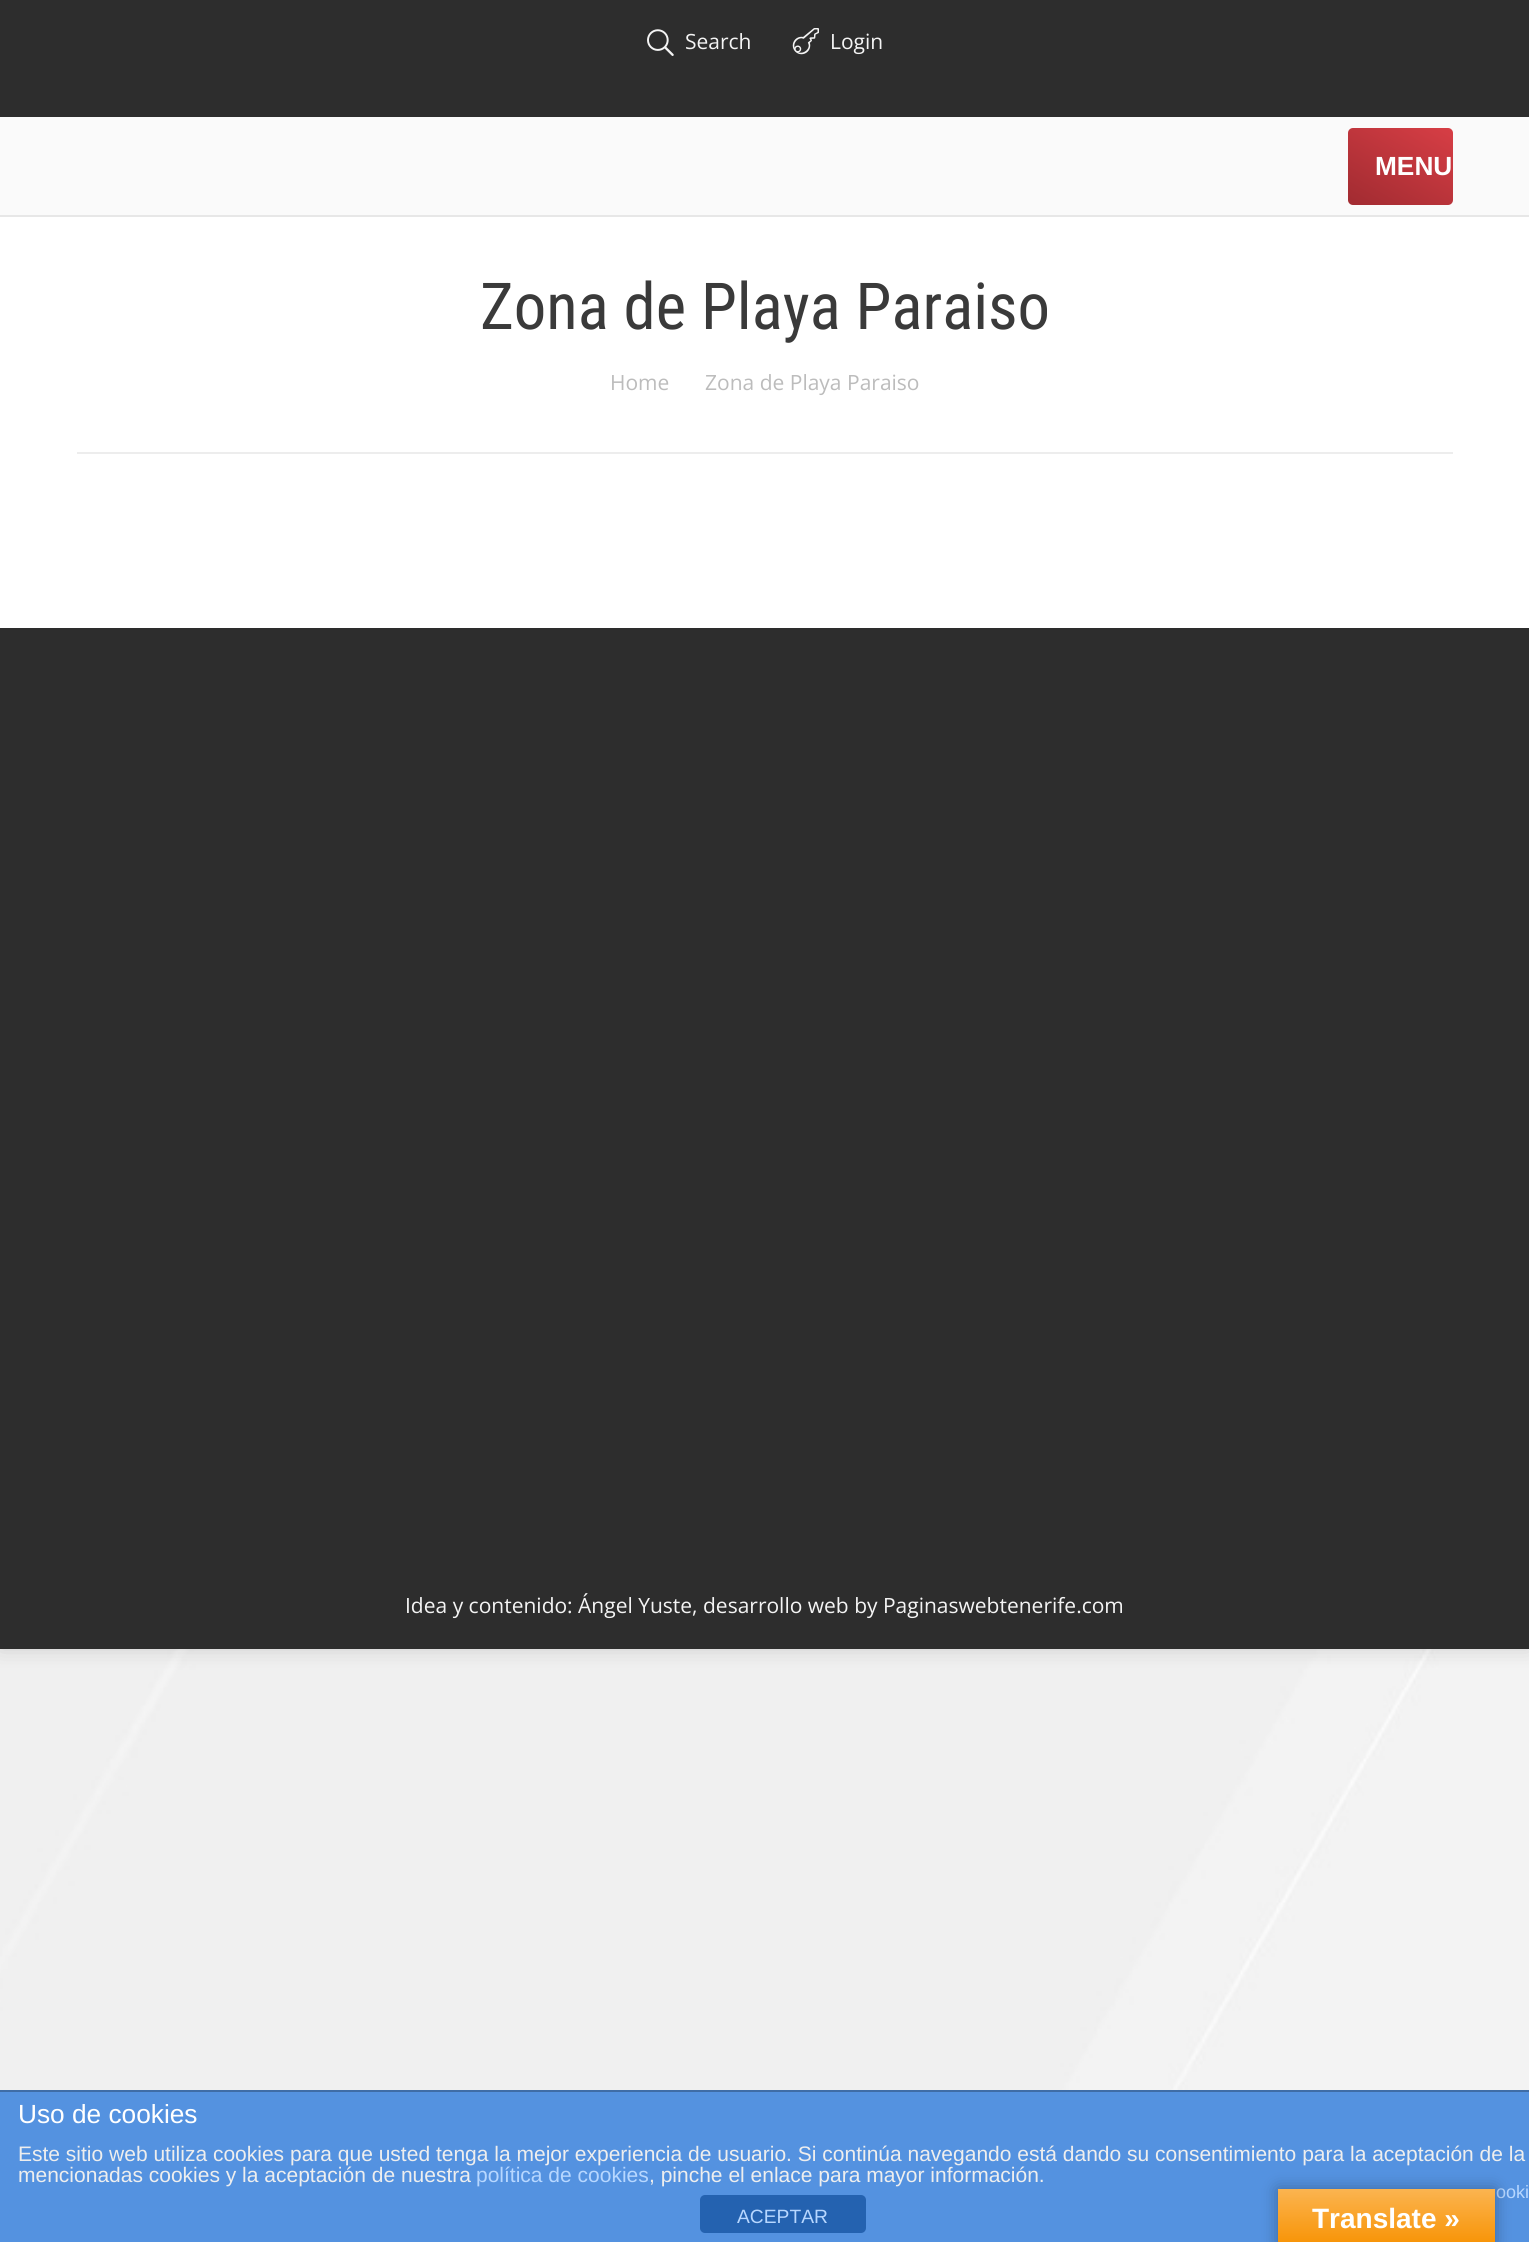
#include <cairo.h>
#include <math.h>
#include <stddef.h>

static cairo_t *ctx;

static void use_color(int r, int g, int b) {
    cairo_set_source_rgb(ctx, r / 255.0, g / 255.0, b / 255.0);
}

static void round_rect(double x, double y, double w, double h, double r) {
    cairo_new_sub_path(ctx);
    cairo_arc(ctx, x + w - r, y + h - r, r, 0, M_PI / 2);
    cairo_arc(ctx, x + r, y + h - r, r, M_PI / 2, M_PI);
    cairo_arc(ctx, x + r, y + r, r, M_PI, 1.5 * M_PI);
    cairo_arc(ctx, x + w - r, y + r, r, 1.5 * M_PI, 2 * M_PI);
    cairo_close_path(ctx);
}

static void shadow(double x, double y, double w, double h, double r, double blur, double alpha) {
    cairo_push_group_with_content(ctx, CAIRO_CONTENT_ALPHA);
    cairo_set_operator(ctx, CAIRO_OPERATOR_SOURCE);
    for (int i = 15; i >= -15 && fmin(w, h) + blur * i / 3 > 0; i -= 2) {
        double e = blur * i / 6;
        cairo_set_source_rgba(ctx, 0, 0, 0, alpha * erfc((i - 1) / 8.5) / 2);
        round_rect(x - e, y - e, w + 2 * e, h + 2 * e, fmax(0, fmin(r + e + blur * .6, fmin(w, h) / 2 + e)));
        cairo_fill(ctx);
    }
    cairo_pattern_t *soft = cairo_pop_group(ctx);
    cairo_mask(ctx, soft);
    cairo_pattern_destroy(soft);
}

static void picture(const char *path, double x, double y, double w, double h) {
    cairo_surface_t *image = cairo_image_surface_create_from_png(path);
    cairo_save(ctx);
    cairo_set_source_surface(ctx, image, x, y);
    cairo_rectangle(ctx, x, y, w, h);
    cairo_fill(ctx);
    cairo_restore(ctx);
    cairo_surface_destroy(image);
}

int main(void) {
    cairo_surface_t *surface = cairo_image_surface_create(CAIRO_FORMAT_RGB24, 1529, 2242);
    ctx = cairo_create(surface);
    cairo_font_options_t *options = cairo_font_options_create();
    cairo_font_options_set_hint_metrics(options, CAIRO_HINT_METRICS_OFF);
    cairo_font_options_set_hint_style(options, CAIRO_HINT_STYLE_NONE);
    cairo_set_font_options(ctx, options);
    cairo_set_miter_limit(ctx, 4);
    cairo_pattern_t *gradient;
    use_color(255, 255, 255);
    cairo_paint(ctx);
    picture("img1.png", 0, 1649, 1529, 441);
    use_color(0, 0, 0);
    shadow(0, 0, 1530, 1649, 0, 10.5, 0.15);
    use_color(255, 255, 255);
    cairo_rectangle(ctx, 0, 217, 1529, 411);
    cairo_fill(ctx);
    use_color(250, 250, 250);
    cairo_rectangle(ctx, 0, 117, 1529, 98);
    cairo_fill(ctx);
    use_color(231, 231, 231);
    cairo_rectangle(ctx, 0, 215, 1529, 2);
    cairo_fill(ctx);
    use_color(45, 45, 45);
    cairo_rectangle(ctx, 0, 0, 1529, 117);
    cairo_fill(ctx);
    picture("img2.png", 647, 29, 27, 27);
    cairo_select_font_face(ctx, "Open Sans", CAIRO_FONT_SLANT_NORMAL, CAIRO_FONT_WEIGHT_NORMAL);
    cairo_set_font_size(ctx, 21);
    use_color(244, 244, 244);
    cairo_move_to(ctx, 685, 49);
    cairo_show_text(ctx, "Search");
    picture("img3.png", 792, 28, 27, 27);
    cairo_move_to(ctx, 830, 49);
    cairo_show_text(ctx, "Login");
    gradient = cairo_pattern_create_linear(1370, 218, 1430, 115);
    cairo_pattern_add_color_stop_rgba(gradient, 0, 0.631, 0.169, 0.192, 1);
    cairo_pattern_add_color_stop_rgba(gradient, 1, 0.843, 0.243, 0.271, 1);
    cairo_set_source(ctx, gradient);
    cairo_pattern_destroy(gradient);
    round_rect(1348, 128, 105, 77, 5);
    cairo_fill(ctx);
    cairo_select_font_face(ctx, "Liberation Sans", CAIRO_FONT_SLANT_NORMAL, CAIRO_FONT_WEIGHT_BOLD);
    cairo_set_font_size(ctx, 26.25);
    use_color(255, 255, 255);
    cairo_move_to(ctx, 1375, 175);
    cairo_show_text(ctx, "MENU");
    use_color(237, 237, 237);
    cairo_rectangle(ctx, 77, 452, 1376, 2);
    cairo_fill(ctx);
    cairo_select_font_face(ctx, "Roboto Condensed", CAIRO_FONT_SLANT_NORMAL, CAIRO_FONT_WEIGHT_NORMAL);
    cairo_set_font_size(ctx, 64.75);
    use_color(58, 58, 58);
    cairo_move_to(ctx, 480, 329);
    cairo_show_text(ctx, "Zona de Playa Paraiso");
    cairo_select_font_face(ctx, "Open Sans", CAIRO_FONT_SLANT_NORMAL, CAIRO_FONT_WEIGHT_NORMAL);
    cairo_set_font_size(ctx, 21);
    use_color(188, 188, 188);
    cairo_move_to(ctx, 610, 390);
    cairo_show_text(ctx, "Home");
    cairo_move_to(ctx, 705, 390);
    cairo_show_text(ctx, "Zona de Playa Paraiso");
    use_color(45, 45, 45);
    cairo_rectangle(ctx, 0, 628, 1529, 1021);
    cairo_fill(ctx);
    use_color(244, 244, 244);
    cairo_move_to(ctx, 405, 1613);
    cairo_show_text(ctx, "Idea y contenido: Ángel Yuste, desarrollo web by Paginaswebtenerife.com");
    use_color(84, 146, 224);
    cairo_rectangle(ctx, 0, 2092, 1529, 150);
    cairo_fill(ctx);
    use_color(63, 109, 167);
    cairo_rectangle(ctx, 0, 2090, 1529, 2);
    cairo_fill(ctx);
    cairo_select_font_face(ctx, "Liberation Sans", CAIRO_FONT_SLANT_NORMAL, CAIRO_FONT_WEIGHT_NORMAL);
    cairo_set_font_size(ctx, 26.25);
    use_color(255, 255, 255);
    cairo_move_to(ctx, 18, 2123);
    cairo_show_text(ctx, "Uso de cookies");
    cairo_set_font_size(ctx, 21);
    use_color(238, 238, 238);
    cairo_move_to(ctx, 18, 2161);
    cairo_show_text(ctx, "Este sitio web utiliza cookies para que usted tenga la mejor experiencia de usuario. Si continúa navegando está dando su consentimiento para la aceptación de la");
    cairo_move_to(ctx, 18, 2182);
    cairo_show_text(ctx, "mencionadas cookies y la aceptación de nuestra");
    use_color(183, 215, 255);
    cairo_move_to(ctx, 476, 2182);
    cairo_show_text(ctx, "política de cookies");
    use_color(238, 238, 238);
    cairo_move_to(ctx, 649, 2182);
    cairo_show_text(ctx, ", pinche el enlace para mayor información.");
    cairo_set_font_size(ctx, 18);
    use_color(183, 215, 255);
    cairo_move_to(ctx, 1496, 2198);
    cairo_show_text(ctx, "ooki");
    use_color(36, 98, 176);
    round_rect(700, 2195, 166, 38, 5);
    cairo_fill(ctx);
    cairo_set_font_size(ctx, 19.25);
    use_color(183, 215, 255);
    cairo_move_to(ctx, 737, 2223);
    cairo_show_text(ctx, "ACEPTAR");
    use_color(0, 0, 0);
    shadow(1278, 2189, 217, 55, 0, 8, 0.3);
    gradient = cairo_pattern_create_linear(1386, 2189, 1386, 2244);
    cairo_pattern_add_color_stop_rgba(gradient, 0, 0.984, 0.706, 0.314, 1);
    cairo_pattern_add_color_stop_rgba(gradient, 1, 0.973, 0.58, 0.024, 1);
    cairo_set_source(ctx, gradient);
    cairo_pattern_destroy(gradient);
    cairo_rectangle(ctx, 1278, 2189, 217, 53);
    cairo_fill(ctx);
    cairo_select_font_face(ctx, "Liberation Sans", CAIRO_FONT_SLANT_NORMAL, CAIRO_FONT_WEIGHT_BOLD);
    cairo_set_font_size(ctx, 28);
    use_color(255, 255, 255);
    cairo_move_to(ctx, 1312, 2228);
    cairo_show_text(ctx, "Translate »");
    cairo_surface_write_to_png(surface, "result.png");
    cairo_font_options_destroy(options);
    cairo_destroy(ctx);
    cairo_surface_destroy(surface);
    return 0;
}
